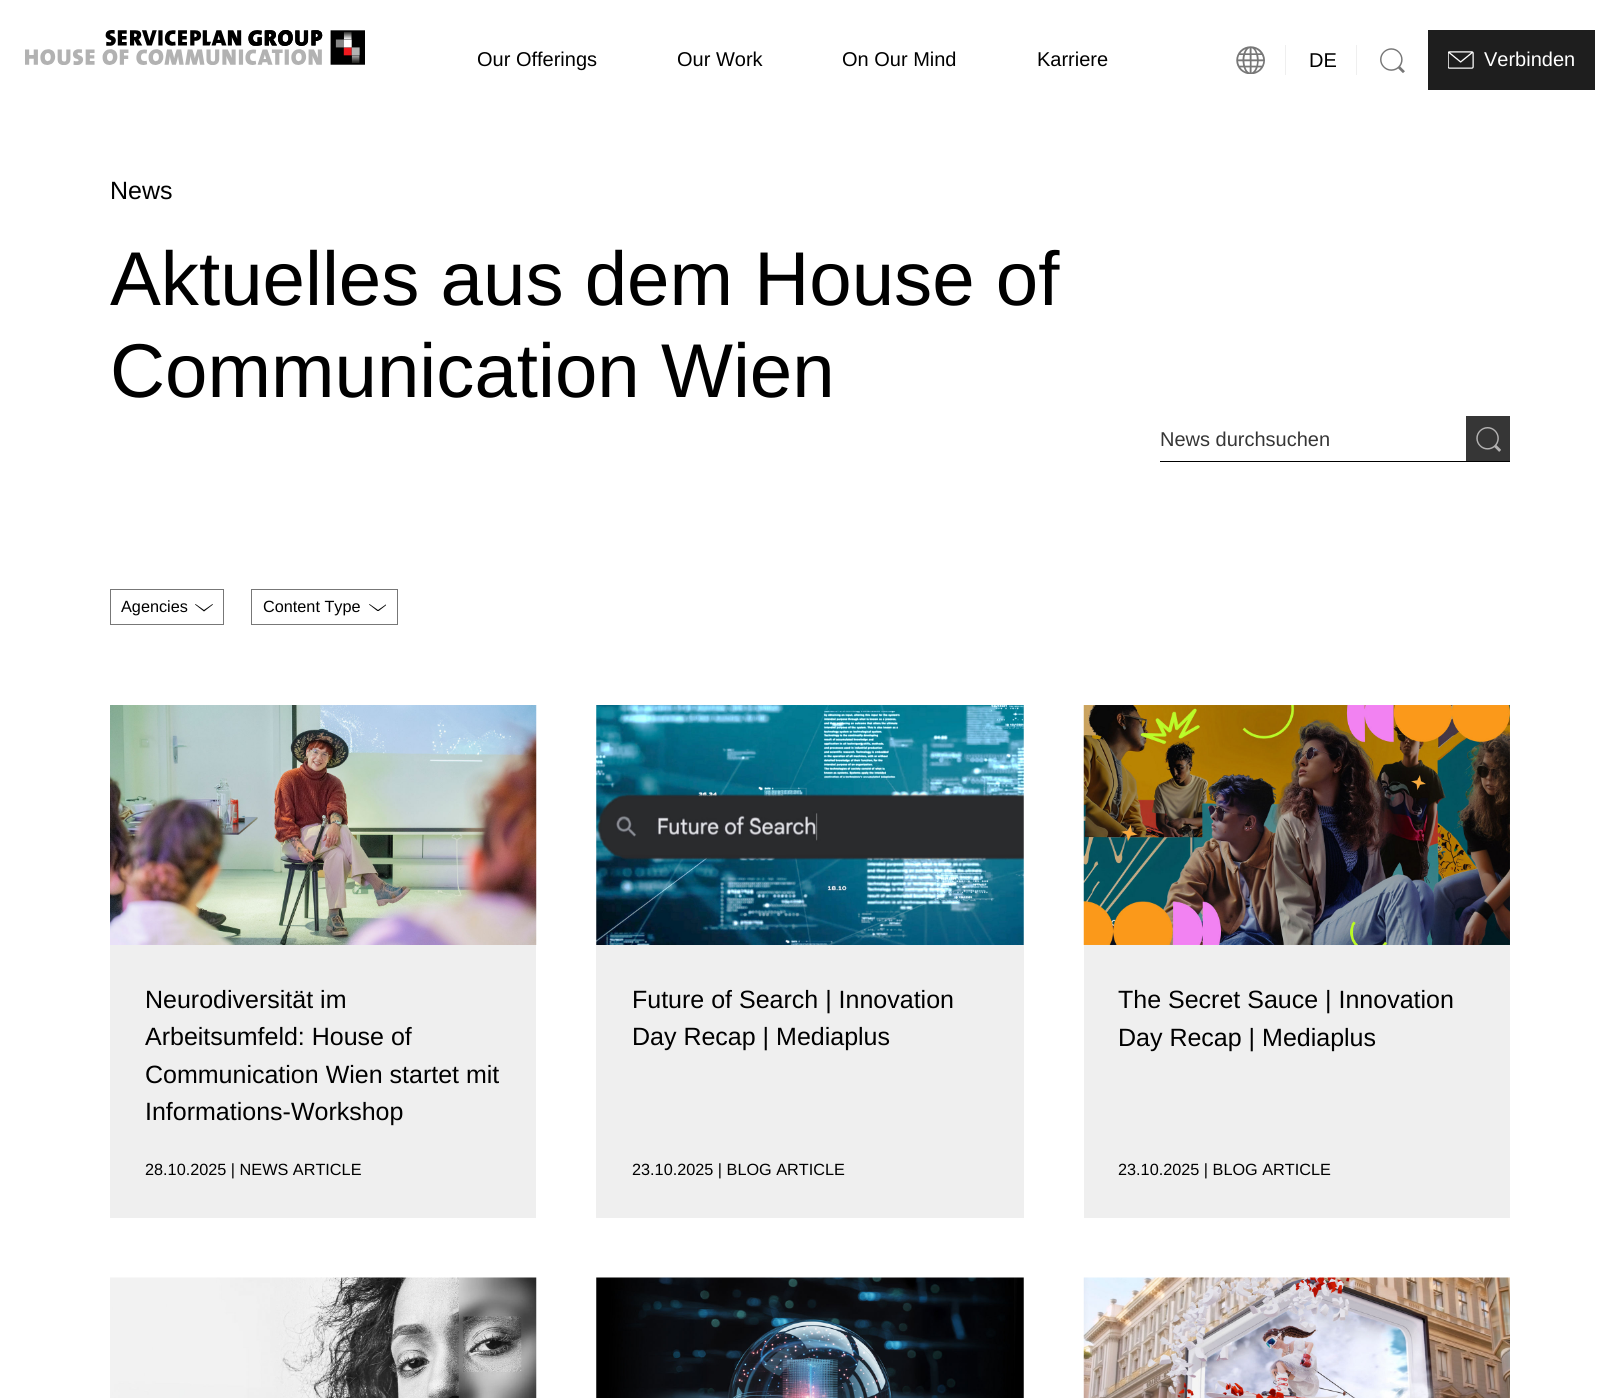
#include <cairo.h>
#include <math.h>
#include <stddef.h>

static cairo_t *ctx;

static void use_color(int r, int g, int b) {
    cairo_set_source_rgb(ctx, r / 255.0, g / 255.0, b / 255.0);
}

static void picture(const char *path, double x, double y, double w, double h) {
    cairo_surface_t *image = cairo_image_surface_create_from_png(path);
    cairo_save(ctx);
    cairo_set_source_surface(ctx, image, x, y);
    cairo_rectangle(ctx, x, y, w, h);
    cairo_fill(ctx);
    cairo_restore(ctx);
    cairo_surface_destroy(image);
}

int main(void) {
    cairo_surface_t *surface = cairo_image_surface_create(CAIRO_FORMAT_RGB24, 1619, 1398);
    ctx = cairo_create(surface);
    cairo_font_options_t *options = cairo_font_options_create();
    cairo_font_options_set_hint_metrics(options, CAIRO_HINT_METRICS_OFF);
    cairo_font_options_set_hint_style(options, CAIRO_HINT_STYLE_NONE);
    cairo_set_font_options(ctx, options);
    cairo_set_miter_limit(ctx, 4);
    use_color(255, 255, 255);
    cairo_paint(ctx);
    picture("img1.png", 25, 30, 340, 35);
    cairo_select_font_face(ctx, "Liberation Sans", CAIRO_FONT_SLANT_NORMAL, CAIRO_FONT_WEIGHT_NORMAL);
    cairo_set_font_size(ctx, 20);
    use_color(0, 0, 0);
    cairo_move_to(ctx, 477, 66);
    cairo_show_text(ctx, "Our Offerings");
    cairo_move_to(ctx, 677, 66);
    cairo_show_text(ctx, "Our Work");
    cairo_move_to(ctx, 842, 66);
    cairo_show_text(ctx, "On Our Mind");
    cairo_move_to(ctx, 1037, 66);
    cairo_show_text(ctx, "Karriere");
    picture("img2.png", 1236, 46, 29, 28);
    use_color(239, 239, 239);
    cairo_rectangle(ctx, 1285, 45, 1, 30);
    cairo_fill(ctx);
    use_color(0, 0, 0);
    cairo_move_to(ctx, 1309, 67);
    cairo_show_text(ctx, "DE");
    use_color(239, 239, 239);
    cairo_rectangle(ctx, 1356, 45, 1, 30);
    cairo_fill(ctx);
    picture("img3.png", 1380, 48, 25, 25);
    use_color(30, 30, 30);
    cairo_rectangle(ctx, 1428, 30, 167, 60);
    cairo_fill(ctx);
    picture("img4.png", 1448, 51, 26, 18);
    use_color(255, 255, 255);
    cairo_move_to(ctx, 1484, 66);
    cairo_show_text(ctx, "Verbinden");
    cairo_set_font_size(ctx, 25);
    use_color(0, 0, 0);
    cairo_move_to(ctx, 110, 199);
    cairo_show_text(ctx, "News");
    cairo_set_font_size(ctx, 76.25);
    cairo_move_to(ctx, 110, 305);
    cairo_show_text(ctx, "Aktuelles aus dem House of");
    cairo_move_to(ctx, 110, 397);
    cairo_show_text(ctx, "Communication Wien");
    cairo_rectangle(ctx, 1160, 461, 350, 1);
    cairo_fill(ctx);
    cairo_set_font_size(ctx, 20);
    use_color(54, 54, 54);
    cairo_move_to(ctx, 1160, 446);
    cairo_show_text(ctx, "News durchsuchen");
    cairo_rectangle(ctx, 1466, 416, 44, 45);
    cairo_fill(ctx);
    picture("img5.png", 1476, 427, 25, 25);
    cairo_rectangle(ctx, 110.5, 589.5, 113, 35);
    use_color(119, 119, 119);
    cairo_set_line_width(ctx, 1);
    cairo_stroke(ctx);
    cairo_set_font_size(ctx, 16.25);
    use_color(0, 0, 0);
    cairo_move_to(ctx, 121, 612);
    cairo_show_text(ctx, "Agencies");
    cairo_new_path(ctx);
    cairo_move_to(ctx, 204, 611.5);
    cairo_line_to(ctx, 195, 604.5);
    cairo_line_to(ctx, 195.5, 604);
    cairo_line_to(ctx, 204, 610);
    cairo_line_to(ctx, 212.5, 604);
    cairo_line_to(ctx, 213, 604.5);
    cairo_close_path(ctx);
    cairo_fill(ctx);
    cairo_rectangle(ctx, 251.5, 589.5, 146, 35);
    use_color(119, 119, 119);
    cairo_stroke(ctx);
    use_color(0, 0, 0);
    cairo_move_to(ctx, 263, 612);
    cairo_show_text(ctx, "Content Type");
    cairo_save(ctx);
    cairo_rectangle(ctx, 369, 604, 17, 7);
    cairo_clip(ctx);
    cairo_new_path(ctx);
    cairo_move_to(ctx, 378, 611.5);
    cairo_line_to(ctx, 369, 604.5);
    cairo_line_to(ctx, 369.5, 604);
    cairo_line_to(ctx, 378, 610);
    cairo_line_to(ctx, 386.5, 604);
    cairo_line_to(ctx, 387, 604.5);
    cairo_close_path(ctx);
    cairo_fill(ctx);
    cairo_restore(ctx);
    picture("img6.png", 110, 705, 427, 240);
    use_color(239, 239, 239);
    cairo_rectangle(ctx, 110, 945, 426, 273);
    cairo_fill(ctx);
    cairo_set_font_size(ctx, 25);
    use_color(0, 0, 0);
    cairo_move_to(ctx, 145, 1008);
    cairo_show_text(ctx, "Neurodiversität im");
    cairo_move_to(ctx, 145, 1045);
    cairo_show_text(ctx, "Arbeitsumfeld: House of");
    cairo_move_to(ctx, 145, 1083);
    cairo_show_text(ctx, "Communication Wien startet mit");
    cairo_move_to(ctx, 145, 1120);
    cairo_show_text(ctx, "Informations-Workshop");
    cairo_set_font_size(ctx, 16.25);
    cairo_move_to(ctx, 145, 1175);
    cairo_show_text(ctx, "28.10.2025 | NEWS ARTICLE");
    picture("img7.png", 596, 705, 428, 240);
    use_color(239, 239, 239);
    cairo_rectangle(ctx, 596, 945, 428, 273);
    cairo_fill(ctx);
    cairo_set_font_size(ctx, 25);
    use_color(0, 0, 0);
    cairo_move_to(ctx, 632, 1008);
    cairo_show_text(ctx, "Future of Search | Innovation");
    cairo_move_to(ctx, 632, 1045);
    cairo_show_text(ctx, "Day Recap | Mediaplus");
    cairo_set_font_size(ctx, 16.25);
    cairo_move_to(ctx, 632, 1175);
    cairo_show_text(ctx, "23.10.2025 | BLOG ARTICLE");
    picture("img8.png", 1083, 705, 427, 240);
    use_color(239, 239, 239);
    cairo_rectangle(ctx, 1084, 945, 426, 273);
    cairo_fill(ctx);
    cairo_set_font_size(ctx, 25);
    use_color(0, 0, 0);
    cairo_move_to(ctx, 1118, 1008);
    cairo_show_text(ctx, "The Secret Sauce | Innovation");
    cairo_move_to(ctx, 1118, 1046);
    cairo_show_text(ctx, "Day Recap | Mediaplus");
    cairo_set_font_size(ctx, 16.25);
    cairo_move_to(ctx, 1118, 1175);
    cairo_show_text(ctx, "23.10.2025 | BLOG ARTICLE");
    picture("img9.png", 110, 1277, 427, 121);
    picture("img10.png", 596, 1277, 428, 121);
    picture("img11.png", 1083, 1277, 427, 121);
    cairo_surface_write_to_png(surface, "result.png");
    cairo_font_options_destroy(options);
    cairo_destroy(ctx);
    cairo_surface_destroy(surface);
    return 0;
}
